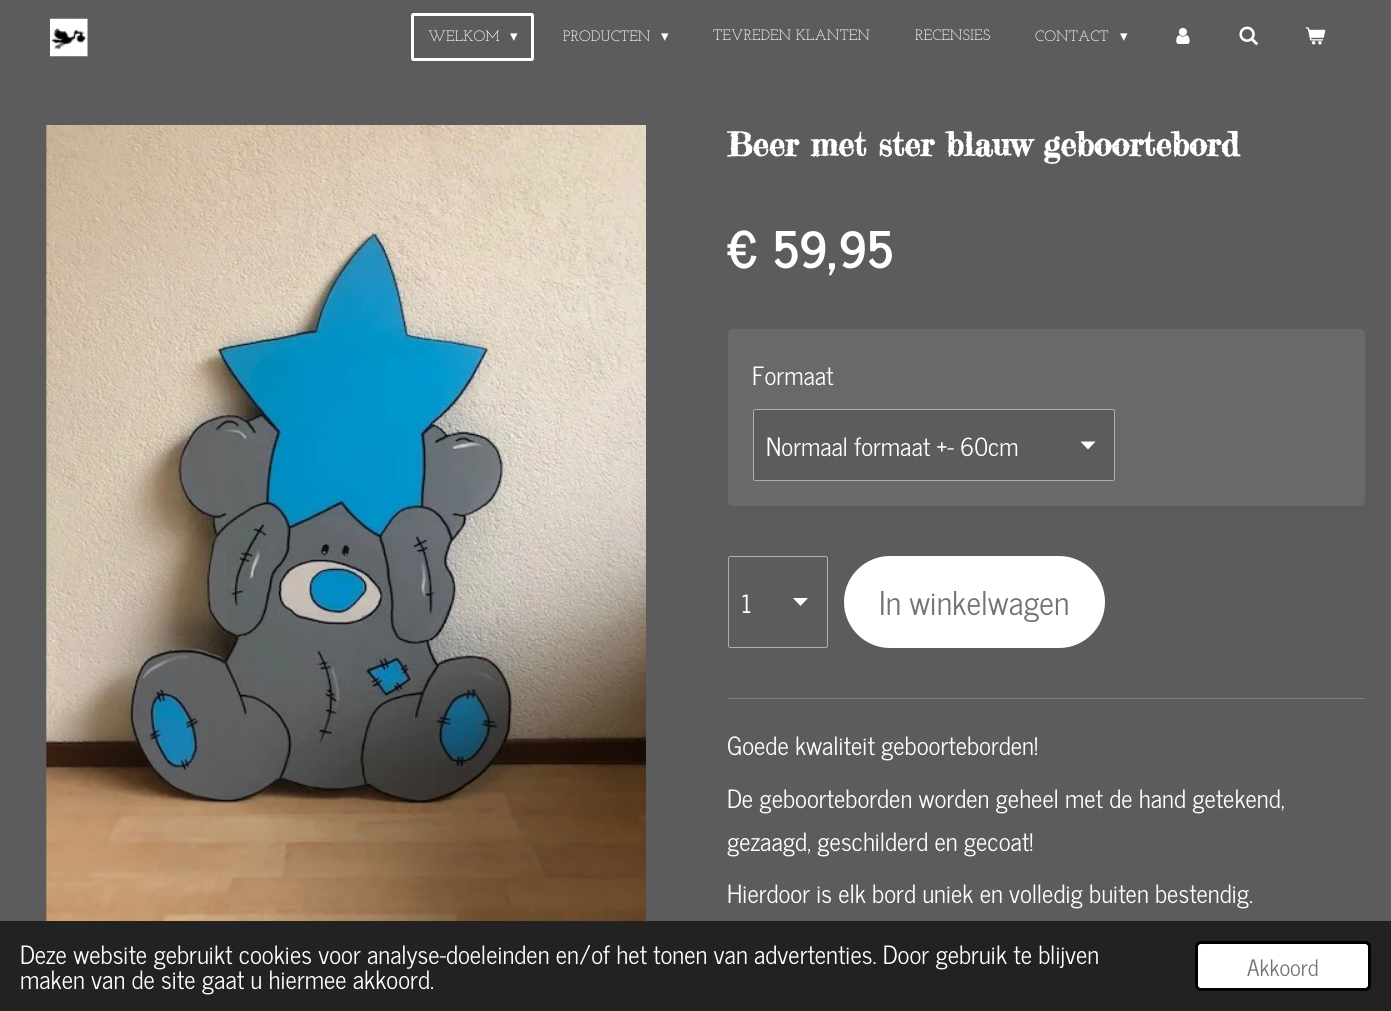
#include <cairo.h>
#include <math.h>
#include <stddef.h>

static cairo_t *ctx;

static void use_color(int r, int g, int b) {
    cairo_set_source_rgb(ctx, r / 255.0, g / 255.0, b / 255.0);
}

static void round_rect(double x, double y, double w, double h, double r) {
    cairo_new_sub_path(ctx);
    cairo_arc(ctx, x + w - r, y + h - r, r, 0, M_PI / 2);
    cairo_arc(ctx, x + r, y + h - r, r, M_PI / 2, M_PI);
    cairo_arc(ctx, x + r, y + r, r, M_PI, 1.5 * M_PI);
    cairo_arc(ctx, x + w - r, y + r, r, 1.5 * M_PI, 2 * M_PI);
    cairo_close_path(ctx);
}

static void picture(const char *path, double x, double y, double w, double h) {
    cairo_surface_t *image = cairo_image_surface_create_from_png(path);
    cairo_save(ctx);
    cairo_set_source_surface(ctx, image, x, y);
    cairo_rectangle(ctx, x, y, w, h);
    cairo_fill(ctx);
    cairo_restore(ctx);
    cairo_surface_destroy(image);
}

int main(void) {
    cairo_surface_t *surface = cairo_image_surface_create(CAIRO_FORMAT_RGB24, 1391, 1011);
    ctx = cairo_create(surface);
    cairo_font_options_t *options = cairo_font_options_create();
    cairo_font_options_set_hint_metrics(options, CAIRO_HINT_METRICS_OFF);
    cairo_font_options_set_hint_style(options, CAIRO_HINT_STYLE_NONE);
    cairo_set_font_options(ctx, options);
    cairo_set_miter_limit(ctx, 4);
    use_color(92, 92, 92);
    cairo_paint(ctx);
    picture("img1.png", 50, 18, 38, 39);
    round_rect(412.5, 14.5, 120, 45, 1);
    use_color(255, 255, 255);
    cairo_set_line_width(ctx, 3);
    cairo_stroke(ctx);
    cairo_select_font_face(ctx, "Josefin Slab Thin", CAIRO_FONT_SLANT_NORMAL, CAIRO_FONT_WEIGHT_NORMAL);
    cairo_set_font_size(ctx, 15);
    cairo_move_to(ctx, 428, 41);
    cairo_show_text(ctx, "WELKOM");
    cairo_select_font_face(ctx, "DejaVu Sans", CAIRO_FONT_SLANT_NORMAL, CAIRO_FONT_WEIGHT_NORMAL);
    cairo_move_to(ctx, 510, 41);
    cairo_show_text(ctx, "▾");
    cairo_select_font_face(ctx, "Josefin Slab Thin", CAIRO_FONT_SLANT_NORMAL, CAIRO_FONT_WEIGHT_NORMAL);
    cairo_move_to(ctx, 563, 41);
    cairo_show_text(ctx, "PRODUCTEN");
    cairo_select_font_face(ctx, "DejaVu Sans", CAIRO_FONT_SLANT_NORMAL, CAIRO_FONT_WEIGHT_NORMAL);
    cairo_move_to(ctx, 661, 41);
    cairo_show_text(ctx, "▾");
    cairo_select_font_face(ctx, "Josefin Slab Thin", CAIRO_FONT_SLANT_NORMAL, CAIRO_FONT_WEIGHT_NORMAL);
    cairo_move_to(ctx, 713, 40);
    cairo_show_text(ctx, "TEVREDEN KLANTEN");
    cairo_move_to(ctx, 915, 40);
    cairo_show_text(ctx, "RECENSIES");
    cairo_move_to(ctx, 1035, 41);
    cairo_show_text(ctx, "CONTACT");
    cairo_select_font_face(ctx, "DejaVu Sans", CAIRO_FONT_SLANT_NORMAL, CAIRO_FONT_WEIGHT_NORMAL);
    cairo_move_to(ctx, 1120, 41);
    cairo_show_text(ctx, "▾");
    picture("img2.png", 1176, 27, 14, 17);
    picture("img3.png", 1239, 26, 20, 20);
    picture("img4.png", 1305, 27, 21, 18);
    picture("img5.png", 46, 125, 600, 796);
    cairo_select_font_face(ctx, "Fredericka the Great", CAIRO_FONT_SLANT_NORMAL, CAIRO_FONT_WEIGHT_BOLD);
    cairo_set_font_size(ctx, 32.5);
    cairo_move_to(ctx, 727, 156);
    cairo_show_text(ctx, "Beer met ster blauw geboortebord");
    cairo_select_font_face(ctx, "News Cycle", CAIRO_FONT_SLANT_NORMAL, CAIRO_FONT_WEIGHT_BOLD);
    cairo_set_font_size(ctx, 50);
    cairo_move_to(ctx, 727, 268);
    cairo_show_text(ctx, "€ 59,95");
    use_color(105, 105, 105);
    round_rect(728, 329, 637, 177, 5);
    cairo_fill(ctx);
    cairo_select_font_face(ctx, "News Cycle", CAIRO_FONT_SLANT_NORMAL, CAIRO_FONT_WEIGHT_NORMAL);
    cairo_set_font_size(ctx, 25);
    use_color(255, 255, 255);
    cairo_move_to(ctx, 752, 385);
    cairo_show_text(ctx, "Formaat");
    use_color(92, 92, 92);
    round_rect(753, 409, 362, 72, 2.5);
    cairo_fill(ctx);
    use_color(255, 255, 255);
    cairo_new_path(ctx);
    cairo_move_to(ctx, 1088, 449.5);
    cairo_line_to(ctx, 1080.5, 441.5);
    cairo_line_to(ctx, 1095.5, 441.5);
    cairo_close_path(ctx);
    cairo_fill(ctx);
    round_rect(753.5, 409.5, 361, 71, 2);
    cairo_set_source_rgba(ctx, 1, 1, 1, 0.5);
    cairo_set_line_width(ctx, 1);
    cairo_stroke(ctx);
    use_color(255, 255, 255);
    cairo_move_to(ctx, 766, 456);
    cairo_show_text(ctx, "Normaal formaat +- 60cm");
    cairo_new_path(ctx);
    cairo_move_to(ctx, 800.5, 606);
    cairo_line_to(ctx, 793, 598);
    cairo_line_to(ctx, 808, 598);
    cairo_close_path(ctx);
    cairo_fill(ctx);
    round_rect(728.5, 556.5, 99, 91, 2);
    use_color(174, 174, 174);
    cairo_stroke(ctx);
    use_color(255, 255, 255);
    cairo_move_to(ctx, 741, 613);
    cairo_show_text(ctx, "1");
    round_rect(844, 556, 261, 92, 46);
    cairo_fill(ctx);
    cairo_set_font_size(ctx, 32.5);
    use_color(115, 115, 115);
    cairo_move_to(ctx, 879, 615);
    cairo_show_text(ctx, "In winkelwagen");
    use_color(125, 125, 125);
    cairo_rectangle(ctx, 728, 698, 637, 1);
    cairo_fill(ctx);
    cairo_set_font_size(ctx, 25);
    use_color(255, 255, 255);
    cairo_move_to(ctx, 727, 755);
    cairo_show_text(ctx, "Goede kwaliteit geboorteborden!");
    cairo_move_to(ctx, 727, 808);
    cairo_show_text(ctx, "De geboorteborden worden geheel met de hand getekend,");
    cairo_move_to(ctx, 727, 851);
    cairo_show_text(ctx, "gezaagd, geschilderd en gecoat!");
    cairo_move_to(ctx, 727, 903);
    cairo_show_text(ctx, "Hierdoor is elk bord uniek en volledig buiten bestendig.");
    use_color(34, 34, 34);
    cairo_rectangle(ctx, 0, 921, 1391, 90);
    cairo_fill(ctx);
    use_color(255, 255, 255);
    cairo_move_to(ctx, 20, 964);
    cairo_show_text(ctx, "Deze website gebruikt cookies voor analyse-doeleinden en/of het tonen van advertenties. Door gebruik te blijven");
    cairo_move_to(ctx, 20, 989);
    cairo_show_text(ctx, "maken van de site gaat u hiermee akkoord.");
    round_rect(1196.5, 942.5, 173, 47, 4.5);
    cairo_fill_preserve(ctx);
    use_color(0, 0, 0);
    cairo_set_line_width(ctx, 3);
    cairo_stroke(ctx);
    cairo_set_font_size(ctx, 22.5);
    use_color(115, 115, 115);
    cairo_move_to(ctx, 1247, 976);
    cairo_show_text(ctx, "Akkoord");
    cairo_surface_write_to_png(surface, "result.png");
    cairo_font_options_destroy(options);
    cairo_destroy(ctx);
    cairo_surface_destroy(surface);
    return 0;
}
